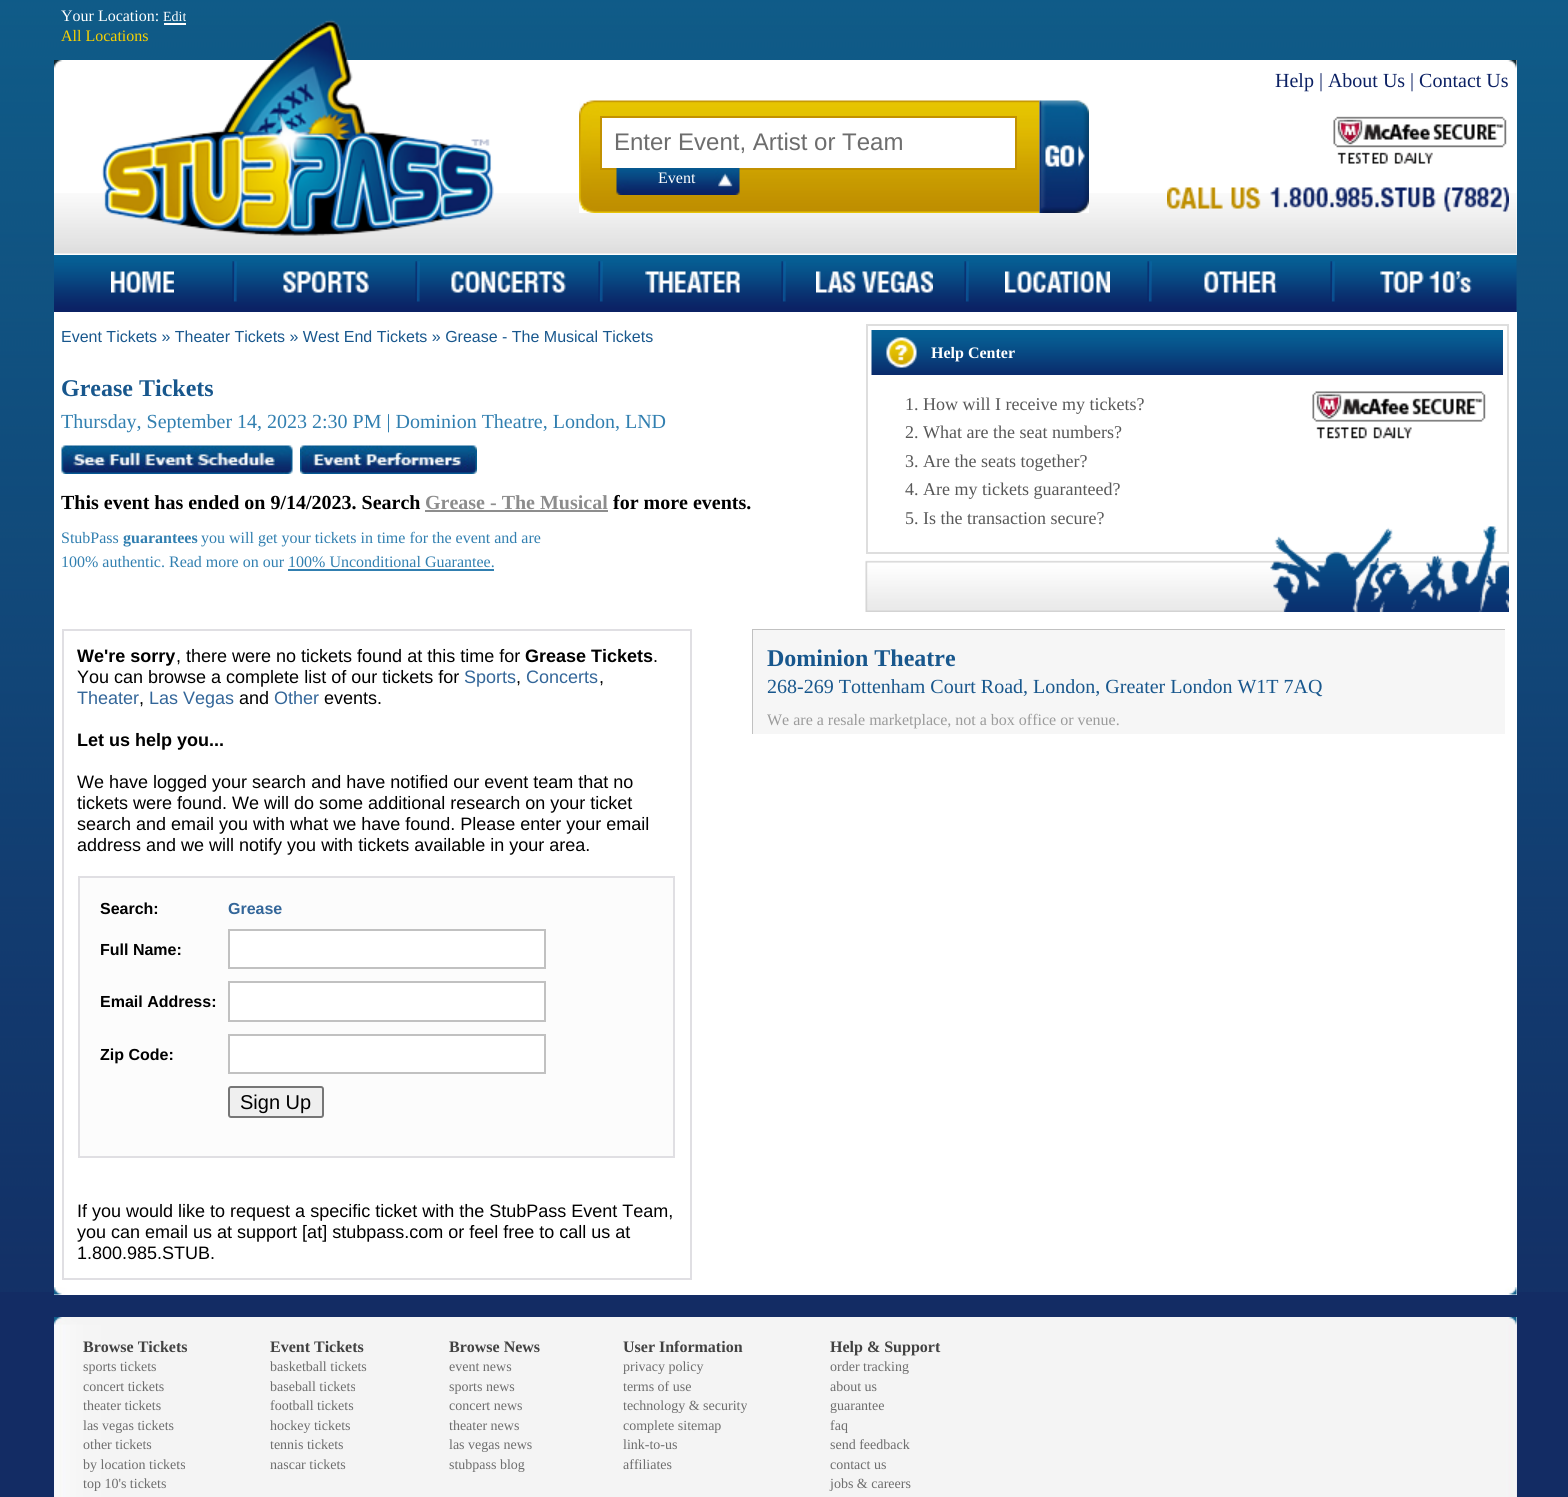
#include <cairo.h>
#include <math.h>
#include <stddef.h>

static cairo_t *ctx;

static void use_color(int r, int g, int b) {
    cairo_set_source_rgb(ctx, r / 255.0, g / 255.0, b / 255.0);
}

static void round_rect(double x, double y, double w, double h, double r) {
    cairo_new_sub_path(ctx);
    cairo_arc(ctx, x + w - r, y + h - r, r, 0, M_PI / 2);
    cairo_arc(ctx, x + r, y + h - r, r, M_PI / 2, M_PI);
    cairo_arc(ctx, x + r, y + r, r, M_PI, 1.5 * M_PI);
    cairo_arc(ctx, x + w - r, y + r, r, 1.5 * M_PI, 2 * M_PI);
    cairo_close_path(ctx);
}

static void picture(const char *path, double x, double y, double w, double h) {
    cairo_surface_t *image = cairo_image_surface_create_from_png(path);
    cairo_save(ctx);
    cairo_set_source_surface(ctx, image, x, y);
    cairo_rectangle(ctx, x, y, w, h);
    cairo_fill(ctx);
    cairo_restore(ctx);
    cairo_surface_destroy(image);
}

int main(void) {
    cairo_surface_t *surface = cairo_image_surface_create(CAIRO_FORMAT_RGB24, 1568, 1497);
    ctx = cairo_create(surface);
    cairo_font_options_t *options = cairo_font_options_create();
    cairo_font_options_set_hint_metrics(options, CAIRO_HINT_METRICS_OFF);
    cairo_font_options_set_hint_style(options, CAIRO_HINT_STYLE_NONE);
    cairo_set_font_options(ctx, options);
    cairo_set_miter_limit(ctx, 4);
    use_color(19, 44, 100);
    cairo_paint(ctx);
    picture("img1.png", 0, 0, 1568, 1292);
    use_color(255, 255, 255);
    cairo_rectangle(ctx, 1516, 60, 1, 9);
    cairo_fill(ctx);
    picture("img2.png", 54, 60, 1463, 9);
    cairo_rectangle(ctx, 54, 69, 1463, 186);
    cairo_fill(ctx);
    picture("img3.png", 54, 193, 1463, 61);
    picture("img4.png", 101, 19, 393, 217);
    cairo_select_font_face(ctx, "Liberation Serif", CAIRO_FONT_SLANT_NORMAL, CAIRO_FONT_WEIGHT_NORMAL);
    cairo_set_font_size(ctx, 16);
    cairo_move_to(ctx, 61, 21);
    cairo_show_text(ctx, "Your Location:");
    cairo_set_font_size(ctx, 14);
    cairo_move_to(ctx, 163, 21);
    cairo_show_text(ctx, "Edit");
    cairo_rectangle(ctx, 164, 23, 22, 2);
    cairo_fill(ctx);
    cairo_set_font_size(ctx, 16);
    use_color(248, 210, 1);
    cairo_move_to(ctx, 61, 41);
    cairo_show_text(ctx, "All Locations");
    cairo_set_font_size(ctx, 20);
    use_color(11, 32, 99);
    cairo_move_to(ctx, 1275, 87);
    cairo_show_text(ctx, "Help | About Us | Contact Us");
    picture("img5.png", 1333, 116, 174, 48);
    picture("img6.png", 1167, 187, 342, 25);
    picture("img7.png", 579, 100, 461, 113);
    use_color(255, 255, 255);
    cairo_rectangle(ctx, 601, 117, 415, 52);
    cairo_fill_preserve(ctx);
    use_color(194, 145, 0);
    cairo_stroke(ctx);
    cairo_select_font_face(ctx, "Liberation Sans", CAIRO_FONT_SLANT_NORMAL, CAIRO_FONT_WEIGHT_NORMAL);
    cairo_set_font_size(ctx, 24);
    use_color(109, 109, 109);
    cairo_move_to(ctx, 614, 150);
    cairo_show_text(ctx, "Enter Event, Artist or Team");
    picture("img8.png", 616, 168, 124, 27);
    cairo_select_font_face(ctx, "Liberation Serif", CAIRO_FONT_SLANT_NORMAL, CAIRO_FONT_WEIGHT_NORMAL);
    cairo_set_font_size(ctx, 16);
    use_color(255, 255, 255);
    cairo_move_to(ctx, 658, 183);
    cairo_show_text(ctx, "Event");
    picture("img9.png", 1039, 100, 50, 113);
    picture("img10.png", 54, 255, 1463, 57);
    picture("img11.png", 111, 271, 63, 22);
    picture("img12.png", 232, 261, 5, 41);
    picture("img13.png", 283, 271, 86, 22);
    picture("img14.png", 415, 261, 5, 41);
    picture("img15.png", 451, 271, 115, 22);
    picture("img14.png", 598, 261, 5, 41);
    picture("img16.png", 645, 271, 95, 22);
    picture("img12.png", 781, 261, 5, 41);
    picture("img17.png", 816, 271, 117, 22);
    picture("img12.png", 964, 261, 5, 41);
    picture("img18.png", 1005, 271, 105, 22);
    picture("img14.png", 1147, 261, 5, 41);
    picture("img19.png", 1204, 271, 73, 22);
    picture("img14.png", 1330, 261, 5, 41);
    picture("img20.png", 1380, 271, 92, 22);
    cairo_rectangle(ctx, 54, 312, 1463, 983);
    cairo_fill(ctx);
    cairo_select_font_face(ctx, "Liberation Sans", CAIRO_FONT_SLANT_NORMAL, CAIRO_FONT_WEIGHT_NORMAL);
    use_color(24, 87, 141);
    cairo_move_to(ctx, 61, 342);
    cairo_show_text(ctx, "Event Tickets » Theater Tickets » West End Tickets » Grease - The Musical Tickets");
    cairo_select_font_face(ctx, "Liberation Serif", CAIRO_FONT_SLANT_NORMAL, CAIRO_FONT_WEIGHT_BOLD);
    cairo_set_font_size(ctx, 24);
    cairo_move_to(ctx, 61, 396);
    cairo_show_text(ctx, "Grease Tickets");
    cairo_select_font_face(ctx, "Liberation Serif", CAIRO_FONT_SLANT_NORMAL, CAIRO_FONT_WEIGHT_NORMAL);
    cairo_set_font_size(ctx, 20);
    use_color(49, 127, 176);
    cairo_move_to(ctx, 61, 428);
    cairo_show_text(ctx, "Thursday, September 14, 2023 2:30 PM | Dominion Theatre, London, LND");
    picture("img21.png", 61, 445, 232, 29);
    picture("img22.png", 300, 445, 177, 29);
    cairo_select_font_face(ctx, "Liberation Serif", CAIRO_FONT_SLANT_NORMAL, CAIRO_FONT_WEIGHT_BOLD);
    use_color(0, 0, 0);
    cairo_move_to(ctx, 61, 509);
    cairo_show_text(ctx, "This event has ended on 9/14/2023. Search");
    use_color(141, 141, 141);
    cairo_move_to(ctx, 425, 509);
    cairo_show_text(ctx, "Grease - The Musical");
    cairo_rectangle(ctx, 425, 510, 183, 2);
    cairo_fill(ctx);
    use_color(0, 0, 0);
    cairo_move_to(ctx, 613, 509);
    cairo_show_text(ctx, "for more events.");
    cairo_select_font_face(ctx, "Liberation Serif", CAIRO_FONT_SLANT_NORMAL, CAIRO_FONT_WEIGHT_NORMAL);
    cairo_set_font_size(ctx, 16);
    use_color(49, 127, 176);
    cairo_move_to(ctx, 61, 543);
    cairo_show_text(ctx, "StubPass");
    cairo_select_font_face(ctx, "Liberation Serif", CAIRO_FONT_SLANT_NORMAL, CAIRO_FONT_WEIGHT_BOLD);
    cairo_move_to(ctx, 123, 543);
    cairo_show_text(ctx, "guarantees");
    cairo_select_font_face(ctx, "Liberation Serif", CAIRO_FONT_SLANT_NORMAL, CAIRO_FONT_WEIGHT_NORMAL);
    cairo_move_to(ctx, 201, 543);
    cairo_show_text(ctx, "you will get your tickets in time for the event and are");
    cairo_move_to(ctx, 61, 567);
    cairo_show_text(ctx, "100% authentic. Read more on our 100% Unconditional Guarantee.");
    cairo_rectangle(ctx, 288, 569, 206, 2);
    cairo_fill(ctx);
    cairo_rectangle(ctx, 867, 325, 641, 228);
    use_color(222, 222, 222);
    cairo_stroke(ctx);
    picture("img23.png", 871, 330, 632, 45);
    picture("img24.png", 886, 337, 31, 31);
    cairo_select_font_face(ctx, "Liberation Serif", CAIRO_FONT_SLANT_NORMAL, CAIRO_FONT_WEIGHT_BOLD);
    use_color(255, 255, 255);
    cairo_move_to(ctx, 931, 358);
    cairo_show_text(ctx, "Help Center");
    cairo_select_font_face(ctx, "Liberation Serif", CAIRO_FONT_SLANT_NORMAL, CAIRO_FONT_WEIGHT_NORMAL);
    cairo_set_font_size(ctx, 18);
    use_color(88, 88, 88);
    cairo_move_to(ctx, 905, 410);
    cairo_show_text(ctx, "1. How will I receive my tickets?");
    cairo_move_to(ctx, 905, 438);
    cairo_show_text(ctx, "2. What are the seat numbers?");
    cairo_move_to(ctx, 905, 467);
    cairo_show_text(ctx, "3. Are the seats together?");
    cairo_move_to(ctx, 905, 495);
    cairo_show_text(ctx, "4. Are my tickets guaranteed?");
    cairo_move_to(ctx, 905, 524);
    cairo_show_text(ctx, "5. Is the transaction secure?");
    picture("img25.png", 1312, 391, 174, 48);
    picture("img26.png", 865, 526, 644, 86);
    cairo_rectangle(ctx, 63, 630, 628, 649);
    use_color(224, 223, 227);
    cairo_stroke(ctx);
    cairo_select_font_face(ctx, "Liberation Sans", CAIRO_FONT_SLANT_NORMAL, CAIRO_FONT_WEIGHT_BOLD);
    use_color(0, 0, 0);
    cairo_move_to(ctx, 77, 662);
    cairo_show_text(ctx, "We're sorry");
    cairo_select_font_face(ctx, "Liberation Sans", CAIRO_FONT_SLANT_NORMAL, CAIRO_FONT_WEIGHT_NORMAL);
    cairo_move_to(ctx, 176, 662);
    cairo_show_text(ctx, ", there were no tickets found at this time for");
    cairo_select_font_face(ctx, "Liberation Sans", CAIRO_FONT_SLANT_NORMAL, CAIRO_FONT_WEIGHT_BOLD);
    cairo_move_to(ctx, 525, 662);
    cairo_show_text(ctx, "Grease Tickets");
    cairo_select_font_face(ctx, "Liberation Sans", CAIRO_FONT_SLANT_NORMAL, CAIRO_FONT_WEIGHT_NORMAL);
    cairo_move_to(ctx, 653, 662);
    cairo_show_text(ctx, ".");
    cairo_move_to(ctx, 77, 683);
    cairo_show_text(ctx, "You can browse a complete list of our tickets for");
    use_color(51, 102, 153);
    cairo_move_to(ctx, 464, 683);
    cairo_show_text(ctx, "Sports");
    use_color(0, 0, 0);
    cairo_move_to(ctx, 516, 683);
    cairo_show_text(ctx, ",");
    use_color(51, 102, 153);
    cairo_move_to(ctx, 526, 683);
    cairo_show_text(ctx, "Concerts");
    use_color(0, 0, 0);
    cairo_move_to(ctx, 599, 683);
    cairo_show_text(ctx, ",");
    use_color(51, 102, 153);
    cairo_move_to(ctx, 77, 704);
    cairo_show_text(ctx, "Theater");
    use_color(0, 0, 0);
    cairo_move_to(ctx, 139, 704);
    cairo_show_text(ctx, ",");
    use_color(51, 102, 153);
    cairo_move_to(ctx, 149, 704);
    cairo_show_text(ctx, "Las Vegas");
    use_color(0, 0, 0);
    cairo_move_to(ctx, 239, 704);
    cairo_show_text(ctx, "and");
    use_color(51, 102, 153);
    cairo_move_to(ctx, 274, 704);
    cairo_show_text(ctx, "Other");
    use_color(0, 0, 0);
    cairo_move_to(ctx, 324, 704);
    cairo_show_text(ctx, "events.");
    cairo_select_font_face(ctx, "Liberation Sans", CAIRO_FONT_SLANT_NORMAL, CAIRO_FONT_WEIGHT_BOLD);
    cairo_move_to(ctx, 77, 746);
    cairo_show_text(ctx, "Let us help you...");
    cairo_select_font_face(ctx, "Liberation Sans", CAIRO_FONT_SLANT_NORMAL, CAIRO_FONT_WEIGHT_NORMAL);
    cairo_move_to(ctx, 77, 788);
    cairo_show_text(ctx, "We have logged your search and have notified our event team that no");
    cairo_move_to(ctx, 77, 809);
    cairo_show_text(ctx, "tickets were found. We will do some additional research on your ticket");
    cairo_move_to(ctx, 77, 830);
    cairo_show_text(ctx, "search and email you with what we have found. Please enter your email");
    cairo_move_to(ctx, 77, 851);
    cairo_show_text(ctx, "address and we will notify you with tickets available in your area.");
    use_color(252, 252, 252);
    cairo_rectangle(ctx, 79, 877, 595, 280);
    cairo_fill_preserve(ctx);
    use_color(224, 223, 227);
    cairo_stroke(ctx);
    cairo_select_font_face(ctx, "Liberation Sans", CAIRO_FONT_SLANT_NORMAL, CAIRO_FONT_WEIGHT_BOLD);
    cairo_set_font_size(ctx, 16);
    use_color(0, 0, 0);
    cairo_move_to(ctx, 100, 914);
    cairo_show_text(ctx, "Search:");
    use_color(51, 102, 153);
    cairo_move_to(ctx, 228, 914);
    cairo_show_text(ctx, "Grease");
    use_color(0, 0, 0);
    cairo_move_to(ctx, 100, 955);
    cairo_show_text(ctx, "Full Name:");
    use_color(255, 255, 255);
    cairo_rectangle(ctx, 229, 930, 316, 38);
    cairo_fill_preserve(ctx);
    use_color(193, 193, 193);
    cairo_stroke(ctx);
    use_color(0, 0, 0);
    cairo_move_to(ctx, 100, 1007);
    cairo_show_text(ctx, "Email Address:");
    use_color(255, 255, 255);
    cairo_rectangle(ctx, 229, 982, 316, 39);
    cairo_fill_preserve(ctx);
    use_color(193, 193, 193);
    cairo_stroke(ctx);
    use_color(0, 0, 0);
    cairo_move_to(ctx, 100, 1060);
    cairo_show_text(ctx, "Zip Code:");
    use_color(255, 255, 255);
    cairo_rectangle(ctx, 229, 1035, 316, 38);
    cairo_fill_preserve(ctx);
    use_color(193, 193, 193);
    cairo_stroke(ctx);
    use_color(239, 239, 239);
    round_rect(229, 1087, 94, 30, 2);
    cairo_fill_preserve(ctx);
    use_color(118, 118, 118);
    cairo_stroke(ctx);
    cairo_select_font_face(ctx, "Liberation Sans", CAIRO_FONT_SLANT_NORMAL, CAIRO_FONT_WEIGHT_NORMAL);
    cairo_set_font_size(ctx, 20);
    use_color(0, 0, 0);
    cairo_move_to(ctx, 240, 1109);
    cairo_show_text(ctx, "Sign Up");
    cairo_set_font_size(ctx, 18);
    cairo_move_to(ctx, 77, 1217);
    cairo_show_text(ctx, "If you would like to request a specific ticket with the StubPass Event Team,");
    cairo_move_to(ctx, 77, 1238);
    cairo_show_text(ctx, "you can email us at support [at] stubpass.com or feel free to call us at");
    cairo_move_to(ctx, 77, 1259);
    cairo_show_text(ctx, "1.800.985.STUB.");
    use_color(193, 193, 193);
    cairo_rectangle(ctx, 752, 629, 753, 1);
    cairo_fill(ctx);
    cairo_rectangle(ctx, 752, 629, 2, 105);
    cairo_fill(ctx);
    use_color(246, 246, 246);
    cairo_rectangle(ctx, 753, 630, 752, 104);
    cairo_fill(ctx);
    cairo_select_font_face(ctx, "Liberation Serif", CAIRO_FONT_SLANT_NORMAL, CAIRO_FONT_WEIGHT_BOLD);
    cairo_set_font_size(ctx, 24);
    use_color(24, 87, 141);
    cairo_move_to(ctx, 767, 666);
    cairo_show_text(ctx, "Dominion Theatre");
    cairo_select_font_face(ctx, "Liberation Serif", CAIRO_FONT_SLANT_NORMAL, CAIRO_FONT_WEIGHT_NORMAL);
    cairo_set_font_size(ctx, 20);
    cairo_move_to(ctx, 767, 693);
    cairo_show_text(ctx, "268-269 Tottenham Court Road, London, Greater London W1T 7AQ");
    cairo_set_font_size(ctx, 16);
    use_color(155, 155, 155);
    cairo_move_to(ctx, 767, 725);
    cairo_show_text(ctx, "We are a resale marketplace, not a box office or venue.");
    picture("img27.png", 54, 1287, 1463, 8);
    use_color(236, 236, 236);
    cairo_rectangle(ctx, 1516, 1317, 1, 180);
    cairo_fill(ctx);
    picture("img28.png", 54, 1317, 1463, 9);
    picture("img29.png", 54, 1326, 1463, 171);
    cairo_select_font_face(ctx, "Liberation Serif", CAIRO_FONT_SLANT_NORMAL, CAIRO_FONT_WEIGHT_BOLD);
    use_color(66, 66, 66);
    cairo_move_to(ctx, 83, 1352);
    cairo_show_text(ctx, "Browse Tickets");
    cairo_select_font_face(ctx, "Liberation Serif", CAIRO_FONT_SLANT_NORMAL, CAIRO_FONT_WEIGHT_NORMAL);
    cairo_set_font_size(ctx, 14);
    use_color(109, 109, 109);
    cairo_move_to(ctx, 83, 1371);
    cairo_show_text(ctx, "sports tickets");
    cairo_move_to(ctx, 83, 1391);
    cairo_show_text(ctx, "concert tickets");
    cairo_move_to(ctx, 83, 1410);
    cairo_show_text(ctx, "theater tickets");
    cairo_move_to(ctx, 83, 1430);
    cairo_show_text(ctx, "las vegas tickets");
    cairo_move_to(ctx, 83, 1449);
    cairo_show_text(ctx, "other tickets");
    cairo_move_to(ctx, 83, 1469);
    cairo_show_text(ctx, "by location tickets");
    cairo_move_to(ctx, 83, 1488);
    cairo_show_text(ctx, "top 10's tickets");
    cairo_select_font_face(ctx, "Liberation Serif", CAIRO_FONT_SLANT_NORMAL, CAIRO_FONT_WEIGHT_BOLD);
    cairo_set_font_size(ctx, 16);
    use_color(66, 66, 66);
    cairo_move_to(ctx, 270, 1352);
    cairo_show_text(ctx, "Event Tickets");
    cairo_select_font_face(ctx, "Liberation Serif", CAIRO_FONT_SLANT_NORMAL, CAIRO_FONT_WEIGHT_NORMAL);
    cairo_set_font_size(ctx, 14);
    use_color(109, 109, 109);
    cairo_move_to(ctx, 270, 1371);
    cairo_show_text(ctx, "basketball tickets");
    cairo_move_to(ctx, 270, 1391);
    cairo_show_text(ctx, "baseball tickets");
    cairo_move_to(ctx, 270, 1410);
    cairo_show_text(ctx, "football tickets");
    cairo_move_to(ctx, 270, 1430);
    cairo_show_text(ctx, "hockey tickets");
    cairo_move_to(ctx, 270, 1449);
    cairo_show_text(ctx, "tennis tickets");
    cairo_move_to(ctx, 270, 1469);
    cairo_show_text(ctx, "nascar tickets");
    cairo_select_font_face(ctx, "Liberation Serif", CAIRO_FONT_SLANT_NORMAL, CAIRO_FONT_WEIGHT_BOLD);
    cairo_set_font_size(ctx, 16);
    use_color(66, 66, 66);
    cairo_move_to(ctx, 449, 1352);
    cairo_show_text(ctx, "Browse News");
    cairo_select_font_face(ctx, "Liberation Serif", CAIRO_FONT_SLANT_NORMAL, CAIRO_FONT_WEIGHT_NORMAL);
    cairo_set_font_size(ctx, 14);
    use_color(109, 109, 109);
    cairo_move_to(ctx, 449, 1371);
    cairo_show_text(ctx, "event news");
    cairo_move_to(ctx, 449, 1391);
    cairo_show_text(ctx, "sports news");
    cairo_move_to(ctx, 449, 1410);
    cairo_show_text(ctx, "concert news");
    cairo_move_to(ctx, 449, 1430);
    cairo_show_text(ctx, "theater news");
    cairo_move_to(ctx, 449, 1449);
    cairo_show_text(ctx, "las vegas news");
    cairo_move_to(ctx, 449, 1469);
    cairo_show_text(ctx, "stubpass blog");
    cairo_select_font_face(ctx, "Liberation Serif", CAIRO_FONT_SLANT_NORMAL, CAIRO_FONT_WEIGHT_BOLD);
    cairo_set_font_size(ctx, 16);
    use_color(66, 66, 66);
    cairo_move_to(ctx, 623, 1352);
    cairo_show_text(ctx, "User Information");
    cairo_select_font_face(ctx, "Liberation Serif", CAIRO_FONT_SLANT_NORMAL, CAIRO_FONT_WEIGHT_NORMAL);
    cairo_set_font_size(ctx, 14);
    use_color(109, 109, 109);
    cairo_move_to(ctx, 623, 1371);
    cairo_show_text(ctx, "privacy policy");
    cairo_move_to(ctx, 623, 1391);
    cairo_show_text(ctx, "terms of use");
    cairo_move_to(ctx, 623, 1410);
    cairo_show_text(ctx, "technology & security");
    cairo_move_to(ctx, 623, 1430);
    cairo_show_text(ctx, "complete sitemap");
    cairo_move_to(ctx, 623, 1449);
    cairo_show_text(ctx, "link-to-us");
    cairo_move_to(ctx, 623, 1469);
    cairo_show_text(ctx, "affiliates");
    cairo_select_font_face(ctx, "Liberation Serif", CAIRO_FONT_SLANT_NORMAL, CAIRO_FONT_WEIGHT_BOLD);
    cairo_set_font_size(ctx, 16);
    use_color(66, 66, 66);
    cairo_move_to(ctx, 830, 1352);
    cairo_show_text(ctx, "Help & Support");
    cairo_select_font_face(ctx, "Liberation Serif", CAIRO_FONT_SLANT_NORMAL, CAIRO_FONT_WEIGHT_NORMAL);
    cairo_set_font_size(ctx, 14);
    use_color(109, 109, 109);
    cairo_move_to(ctx, 830, 1371);
    cairo_show_text(ctx, "order tracking");
    cairo_move_to(ctx, 830, 1391);
    cairo_show_text(ctx, "about us");
    cairo_move_to(ctx, 830, 1410);
    cairo_show_text(ctx, "guarantee");
    cairo_move_to(ctx, 830, 1430);
    cairo_show_text(ctx, "faq");
    cairo_move_to(ctx, 830, 1449);
    cairo_show_text(ctx, "send feedback");
    cairo_move_to(ctx, 830, 1469);
    cairo_show_text(ctx, "contact us");
    cairo_move_to(ctx, 830, 1488);
    cairo_show_text(ctx, "jobs & careers");
    cairo_surface_write_to_png(surface, "result.png");
    cairo_font_options_destroy(options);
    cairo_destroy(ctx);
    cairo_surface_destroy(surface);
    return 0;
}
